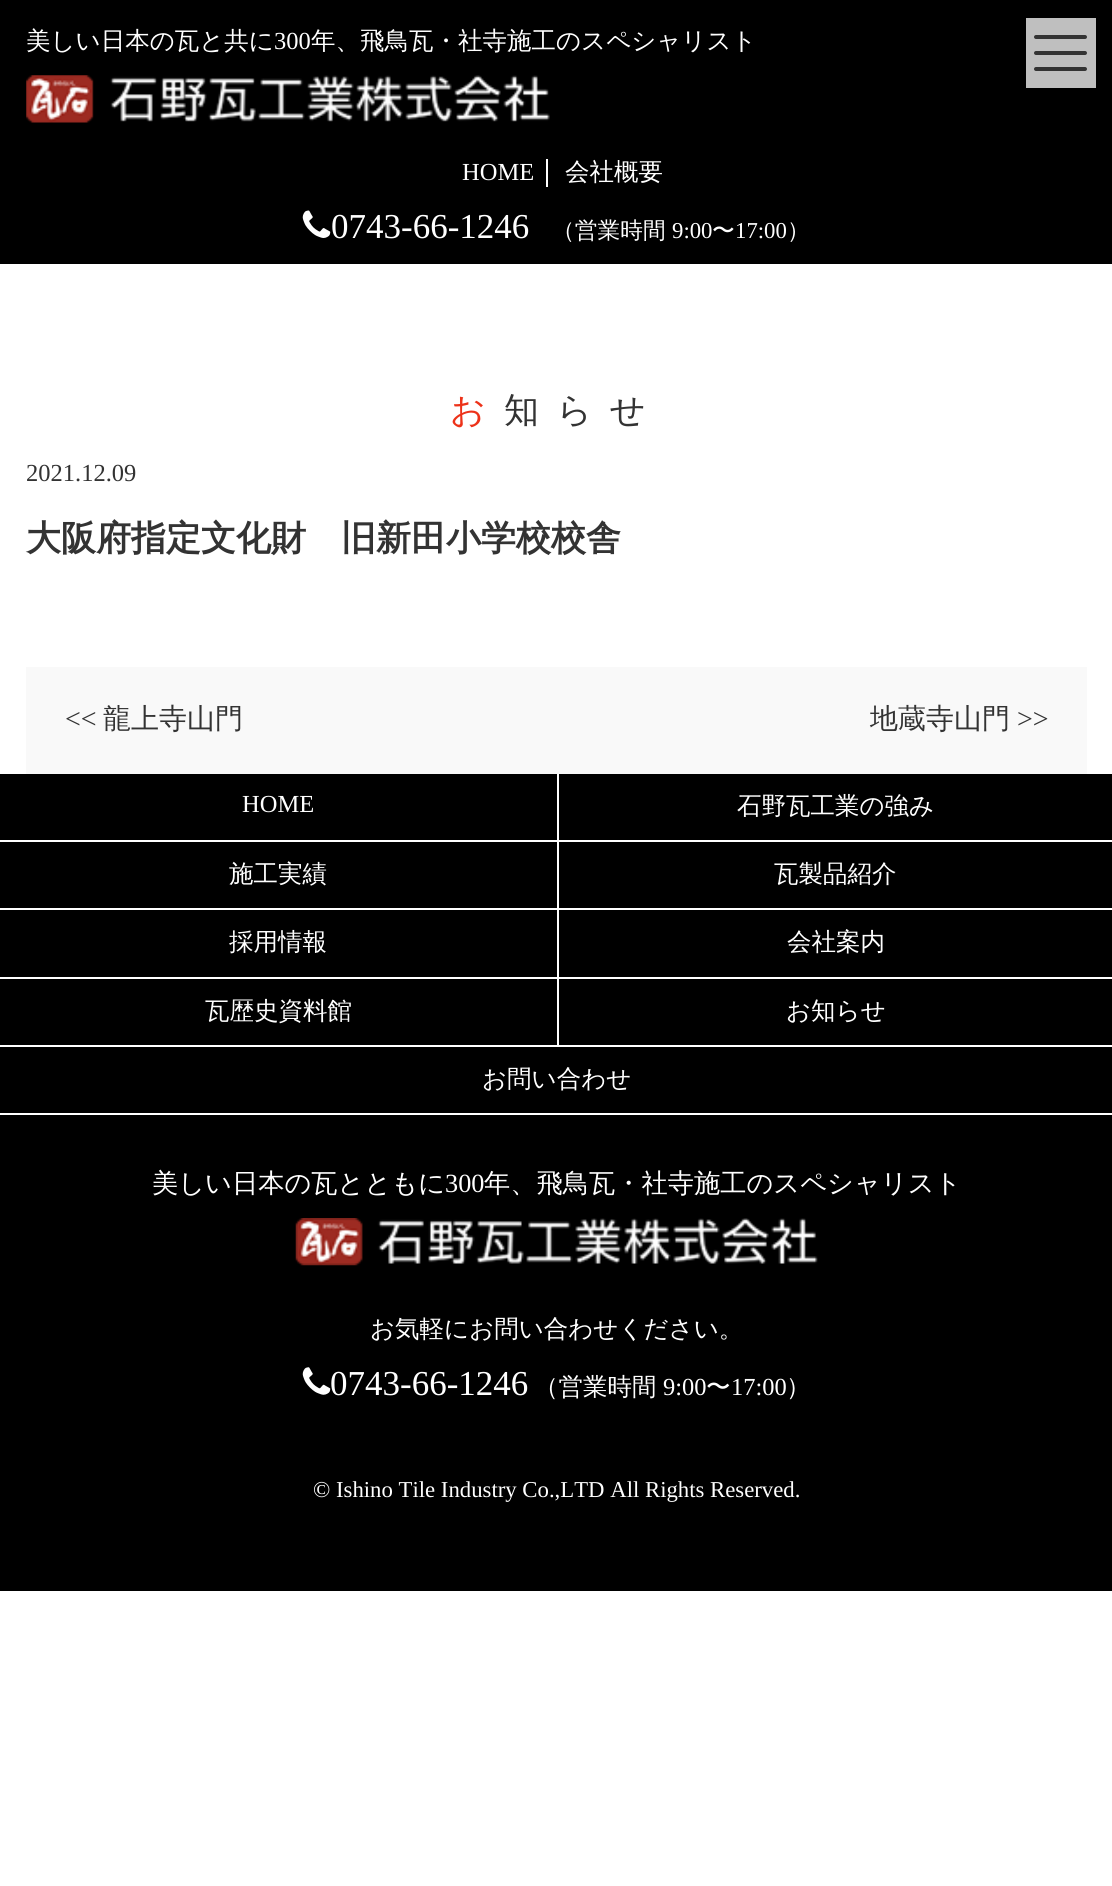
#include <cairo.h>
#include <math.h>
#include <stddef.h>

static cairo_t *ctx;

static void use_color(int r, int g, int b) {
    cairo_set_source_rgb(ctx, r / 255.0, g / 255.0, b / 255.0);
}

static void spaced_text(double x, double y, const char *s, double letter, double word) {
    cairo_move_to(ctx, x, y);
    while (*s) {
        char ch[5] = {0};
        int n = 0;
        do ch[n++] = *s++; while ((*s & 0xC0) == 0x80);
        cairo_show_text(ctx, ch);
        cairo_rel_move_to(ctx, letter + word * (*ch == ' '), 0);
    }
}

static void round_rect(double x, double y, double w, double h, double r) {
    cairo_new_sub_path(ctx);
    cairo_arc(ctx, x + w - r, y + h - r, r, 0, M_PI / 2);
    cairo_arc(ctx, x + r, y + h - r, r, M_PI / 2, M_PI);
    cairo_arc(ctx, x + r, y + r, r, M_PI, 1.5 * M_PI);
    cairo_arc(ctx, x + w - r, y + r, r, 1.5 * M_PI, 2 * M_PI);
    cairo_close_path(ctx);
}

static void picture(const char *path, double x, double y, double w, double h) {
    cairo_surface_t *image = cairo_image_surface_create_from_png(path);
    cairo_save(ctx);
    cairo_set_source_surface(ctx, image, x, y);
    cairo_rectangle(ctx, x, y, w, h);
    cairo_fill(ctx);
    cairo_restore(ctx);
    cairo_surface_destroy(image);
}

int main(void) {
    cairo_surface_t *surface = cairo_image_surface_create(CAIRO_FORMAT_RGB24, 1112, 1886);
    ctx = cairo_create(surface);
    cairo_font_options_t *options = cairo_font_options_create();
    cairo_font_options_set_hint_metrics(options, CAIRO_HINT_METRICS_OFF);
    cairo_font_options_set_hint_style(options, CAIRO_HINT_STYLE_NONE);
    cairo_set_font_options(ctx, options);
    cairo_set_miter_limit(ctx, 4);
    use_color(255, 255, 255);
    cairo_paint(ctx);
    use_color(0, 0, 0);
    cairo_rectangle(ctx, 0, 0, 1112, 264);
    cairo_fill(ctx);
    cairo_select_font_face(ctx, "WenQuanYi Zen Hei Medium", CAIRO_FONT_SLANT_NORMAL, CAIRO_FONT_WEIGHT_NORMAL);
    cairo_set_font_size(ctx, 24.5);
    use_color(255, 255, 255);
    cairo_move_to(ctx, 26, 49);
    cairo_show_text(ctx, "美しい日本の瓦と共に");
    cairo_select_font_face(ctx, "Liberation Serif", CAIRO_FONT_SLANT_NORMAL, CAIRO_FONT_WEIGHT_NORMAL);
    cairo_move_to(ctx, 274, 49);
    cairo_show_text(ctx, "300");
    cairo_select_font_face(ctx, "WenQuanYi Zen Hei Medium", CAIRO_FONT_SLANT_NORMAL, CAIRO_FONT_WEIGHT_NORMAL);
    cairo_move_to(ctx, 311, 49);
    cairo_show_text(ctx, "年、飛鳥瓦・社寺施工のスペシャリスト");
    picture("img1.png", 26, 75, 524, 48);
    cairo_rectangle(ctx, 546, 159, 2, 28);
    cairo_fill(ctx);
    cairo_select_font_face(ctx, "Liberation Serif", CAIRO_FONT_SLANT_NORMAL, CAIRO_FONT_WEIGHT_NORMAL);
    cairo_move_to(ctx, 462, 180);
    cairo_show_text(ctx, "HOME");
    cairo_select_font_face(ctx, "WenQuanYi Zen Hei Medium", CAIRO_FONT_SLANT_NORMAL, CAIRO_FONT_WEIGHT_NORMAL);
    cairo_move_to(ctx, 565, 180);
    cairo_show_text(ctx, "会社概要");
    picture("img2.png", 302, 210, 29, 28);
    cairo_select_font_face(ctx, "Liberation Serif", CAIRO_FONT_SLANT_NORMAL, CAIRO_FONT_WEIGHT_NORMAL);
    cairo_set_font_size(ctx, 35);
    cairo_move_to(ctx, 331, 238);
    cairo_show_text(ctx, "0743-66-1246");
    cairo_select_font_face(ctx, "WenQuanYi Zen Hei Medium", CAIRO_FONT_SLANT_NORMAL, CAIRO_FONT_WEIGHT_NORMAL);
    cairo_set_font_size(ctx, 22.75);
    cairo_move_to(ctx, 552, 238);
    cairo_show_text(ctx, "（営業時間");
    cairo_select_font_face(ctx, "Liberation Serif", CAIRO_FONT_SLANT_NORMAL, CAIRO_FONT_WEIGHT_NORMAL);
    cairo_move_to(ctx, 672, 238);
    cairo_show_text(ctx, "9:00");
    cairo_select_font_face(ctx, "WenQuanYi Zen Hei Medium", CAIRO_FONT_SLANT_NORMAL, CAIRO_FONT_WEIGHT_NORMAL);
    cairo_move_to(ctx, 712, 238);
    cairo_show_text(ctx, "〜");
    cairo_select_font_face(ctx, "Liberation Serif", CAIRO_FONT_SLANT_NORMAL, CAIRO_FONT_WEIGHT_NORMAL);
    cairo_move_to(ctx, 735, 238);
    cairo_show_text(ctx, "17:00");
    cairo_select_font_face(ctx, "WenQuanYi Zen Hei Medium", CAIRO_FONT_SLANT_NORMAL, CAIRO_FONT_WEIGHT_NORMAL);
    cairo_move_to(ctx, 787, 238);
    cairo_show_text(ctx, "）");
    use_color(191, 191, 191);
    cairo_rectangle(ctx, 1026, 18, 70, 70);
    cairo_fill(ctx);
    use_color(51, 51, 51);
    round_rect(1034, 35, 53, 4, 2);
    cairo_fill(ctx);
    round_rect(1034, 51, 53, 4, 2);
    cairo_fill(ctx);
    round_rect(1034, 67, 53, 4, 2);
    cairo_fill(ctx);
    cairo_set_font_size(ctx, 35);
    use_color(237, 50, 25);
    spaced_text(450, 422, "お", 17.5, 0);
    use_color(51, 51, 51);
    spaced_text(504, 422, "知らせ", 17.5, 0);
    cairo_select_font_face(ctx, "Liberation Serif", CAIRO_FONT_SLANT_NORMAL, CAIRO_FONT_WEIGHT_NORMAL);
    cairo_set_font_size(ctx, 24.5);
    cairo_move_to(ctx, 26, 481);
    cairo_show_text(ctx, "2021.12.09");
    cairo_select_font_face(ctx, "WenQuanYi Zen Hei", CAIRO_FONT_SLANT_NORMAL, CAIRO_FONT_WEIGHT_BOLD);
    cairo_set_font_size(ctx, 35);
    cairo_move_to(ctx, 26, 550);
    cairo_show_text(ctx, "大阪府指定文化財　旧新田小学校校舎");
    use_color(249, 249, 249);
    cairo_rectangle(ctx, 26, 667, 1061, 107);
    cairo_fill(ctx);
    cairo_select_font_face(ctx, "Liberation Serif", CAIRO_FONT_SLANT_NORMAL, CAIRO_FONT_WEIGHT_NORMAL);
    cairo_set_font_size(ctx, 28);
    use_color(51, 51, 51);
    cairo_move_to(ctx, 65, 728);
    cairo_show_text(ctx, "<<");
    cairo_select_font_face(ctx, "WenQuanYi Zen Hei Medium", CAIRO_FONT_SLANT_NORMAL, CAIRO_FONT_WEIGHT_NORMAL);
    cairo_move_to(ctx, 103, 728);
    cairo_show_text(ctx, "龍上寺山門");
    cairo_move_to(ctx, 870, 728);
    cairo_show_text(ctx, "地蔵寺山門");
    cairo_select_font_face(ctx, "Liberation Serif", CAIRO_FONT_SLANT_NORMAL, CAIRO_FONT_WEIGHT_NORMAL);
    cairo_move_to(ctx, 1017, 728);
    cairo_show_text(ctx, ">>");
    use_color(0, 0, 0);
    cairo_rectangle(ctx, 0, 774, 1112, 817);
    cairo_fill(ctx);
    use_color(255, 255, 255);
    cairo_rectangle(ctx, 0, 840, 1112, 2);
    cairo_fill(ctx);
    cairo_set_font_size(ctx, 24.5);
    cairo_move_to(ctx, 242, 812);
    cairo_show_text(ctx, "HOME");
    cairo_rectangle(ctx, 557, 774, 2, 68);
    cairo_fill(ctx);
    cairo_select_font_face(ctx, "WenQuanYi Zen Hei Medium", CAIRO_FONT_SLANT_NORMAL, CAIRO_FONT_WEIGHT_NORMAL);
    cairo_move_to(ctx, 737, 814);
    cairo_show_text(ctx, "石野瓦工業の強み");
    cairo_rectangle(ctx, 0, 908, 1112, 2);
    cairo_fill(ctx);
    cairo_move_to(ctx, 229, 882);
    cairo_show_text(ctx, "施工実績");
    cairo_rectangle(ctx, 557, 842, 2, 68);
    cairo_fill(ctx);
    cairo_move_to(ctx, 774, 882);
    cairo_show_text(ctx, "瓦製品紹介");
    cairo_rectangle(ctx, 0, 977, 1112, 2);
    cairo_fill(ctx);
    cairo_move_to(ctx, 229, 950);
    cairo_show_text(ctx, "採用情報");
    cairo_rectangle(ctx, 557, 910, 2, 68);
    cairo_fill(ctx);
    cairo_move_to(ctx, 787, 950);
    cairo_show_text(ctx, "会社案内");
    cairo_rectangle(ctx, 0, 1045, 1112, 2);
    cairo_fill(ctx);
    cairo_move_to(ctx, 205, 1019);
    cairo_show_text(ctx, "瓦歴史資料館");
    cairo_rectangle(ctx, 557, 978, 2, 69);
    cairo_fill(ctx);
    cairo_move_to(ctx, 786, 1019);
    cairo_show_text(ctx, "お知らせ");
    cairo_rectangle(ctx, 0, 1113, 1112, 2);
    cairo_fill(ctx);
    cairo_move_to(ctx, 482, 1087);
    cairo_show_text(ctx, "お問い合わせ");
    cairo_set_font_size(ctx, 26.25);
    cairo_move_to(ctx, 152, 1192);
    cairo_show_text(ctx, "美しい日本の瓦とともに");
    cairo_select_font_face(ctx, "Liberation Serif", CAIRO_FONT_SLANT_NORMAL, CAIRO_FONT_WEIGHT_NORMAL);
    cairo_move_to(ctx, 445, 1192);
    cairo_show_text(ctx, "300");
    cairo_select_font_face(ctx, "WenQuanYi Zen Hei Medium", CAIRO_FONT_SLANT_NORMAL, CAIRO_FONT_WEIGHT_NORMAL);
    cairo_move_to(ctx, 484, 1192);
    cairo_show_text(ctx, "年、飛鳥瓦・社寺施工のスペシャリスト");
    picture("img3.png", 295, 1218, 523, 48);
    cairo_set_font_size(ctx, 24.5);
    cairo_move_to(ctx, 370, 1337);
    cairo_show_text(ctx, "お気軽にお問い合わせください。");
    picture("img4.png", 302, 1367, 29, 28);
    cairo_select_font_face(ctx, "Liberation Serif", CAIRO_FONT_SLANT_NORMAL, CAIRO_FONT_WEIGHT_NORMAL);
    cairo_set_font_size(ctx, 35);
    cairo_move_to(ctx, 330, 1395);
    cairo_show_text(ctx, "0743-66-1246");
    cairo_select_font_face(ctx, "WenQuanYi Zen Hei Medium", CAIRO_FONT_SLANT_NORMAL, CAIRO_FONT_WEIGHT_NORMAL);
    cairo_set_font_size(ctx, 24.5);
    cairo_move_to(ctx, 534, 1395);
    cairo_show_text(ctx, "（営業時間");
    cairo_select_font_face(ctx, "Liberation Serif", CAIRO_FONT_SLANT_NORMAL, CAIRO_FONT_WEIGHT_NORMAL);
    cairo_move_to(ctx, 663, 1395);
    cairo_show_text(ctx, "9:00");
    cairo_select_font_face(ctx, "WenQuanYi Zen Hei Medium", CAIRO_FONT_SLANT_NORMAL, CAIRO_FONT_WEIGHT_NORMAL);
    cairo_move_to(ctx, 706, 1395);
    cairo_show_text(ctx, "〜");
    cairo_select_font_face(ctx, "Liberation Serif", CAIRO_FONT_SLANT_NORMAL, CAIRO_FONT_WEIGHT_NORMAL);
    cairo_move_to(ctx, 731, 1395);
    cairo_show_text(ctx, "17:00");
    cairo_select_font_face(ctx, "WenQuanYi Zen Hei Medium", CAIRO_FONT_SLANT_NORMAL, CAIRO_FONT_WEIGHT_NORMAL);
    cairo_move_to(ctx, 786, 1395);
    cairo_show_text(ctx, "）");
    cairo_select_font_face(ctx, "Liberation Serif", CAIRO_FONT_SLANT_NORMAL, CAIRO_FONT_WEIGHT_NORMAL);
    cairo_set_font_size(ctx, 22.75);
    cairo_move_to(ctx, 313, 1497);
    cairo_show_text(ctx, "© Ishino Tile Industry Co.,LTD All Rights Reserved.");
    cairo_surface_write_to_png(surface, "result.png");
    cairo_font_options_destroy(options);
    cairo_destroy(ctx);
    cairo_surface_destroy(surface);
    return 0;
}
